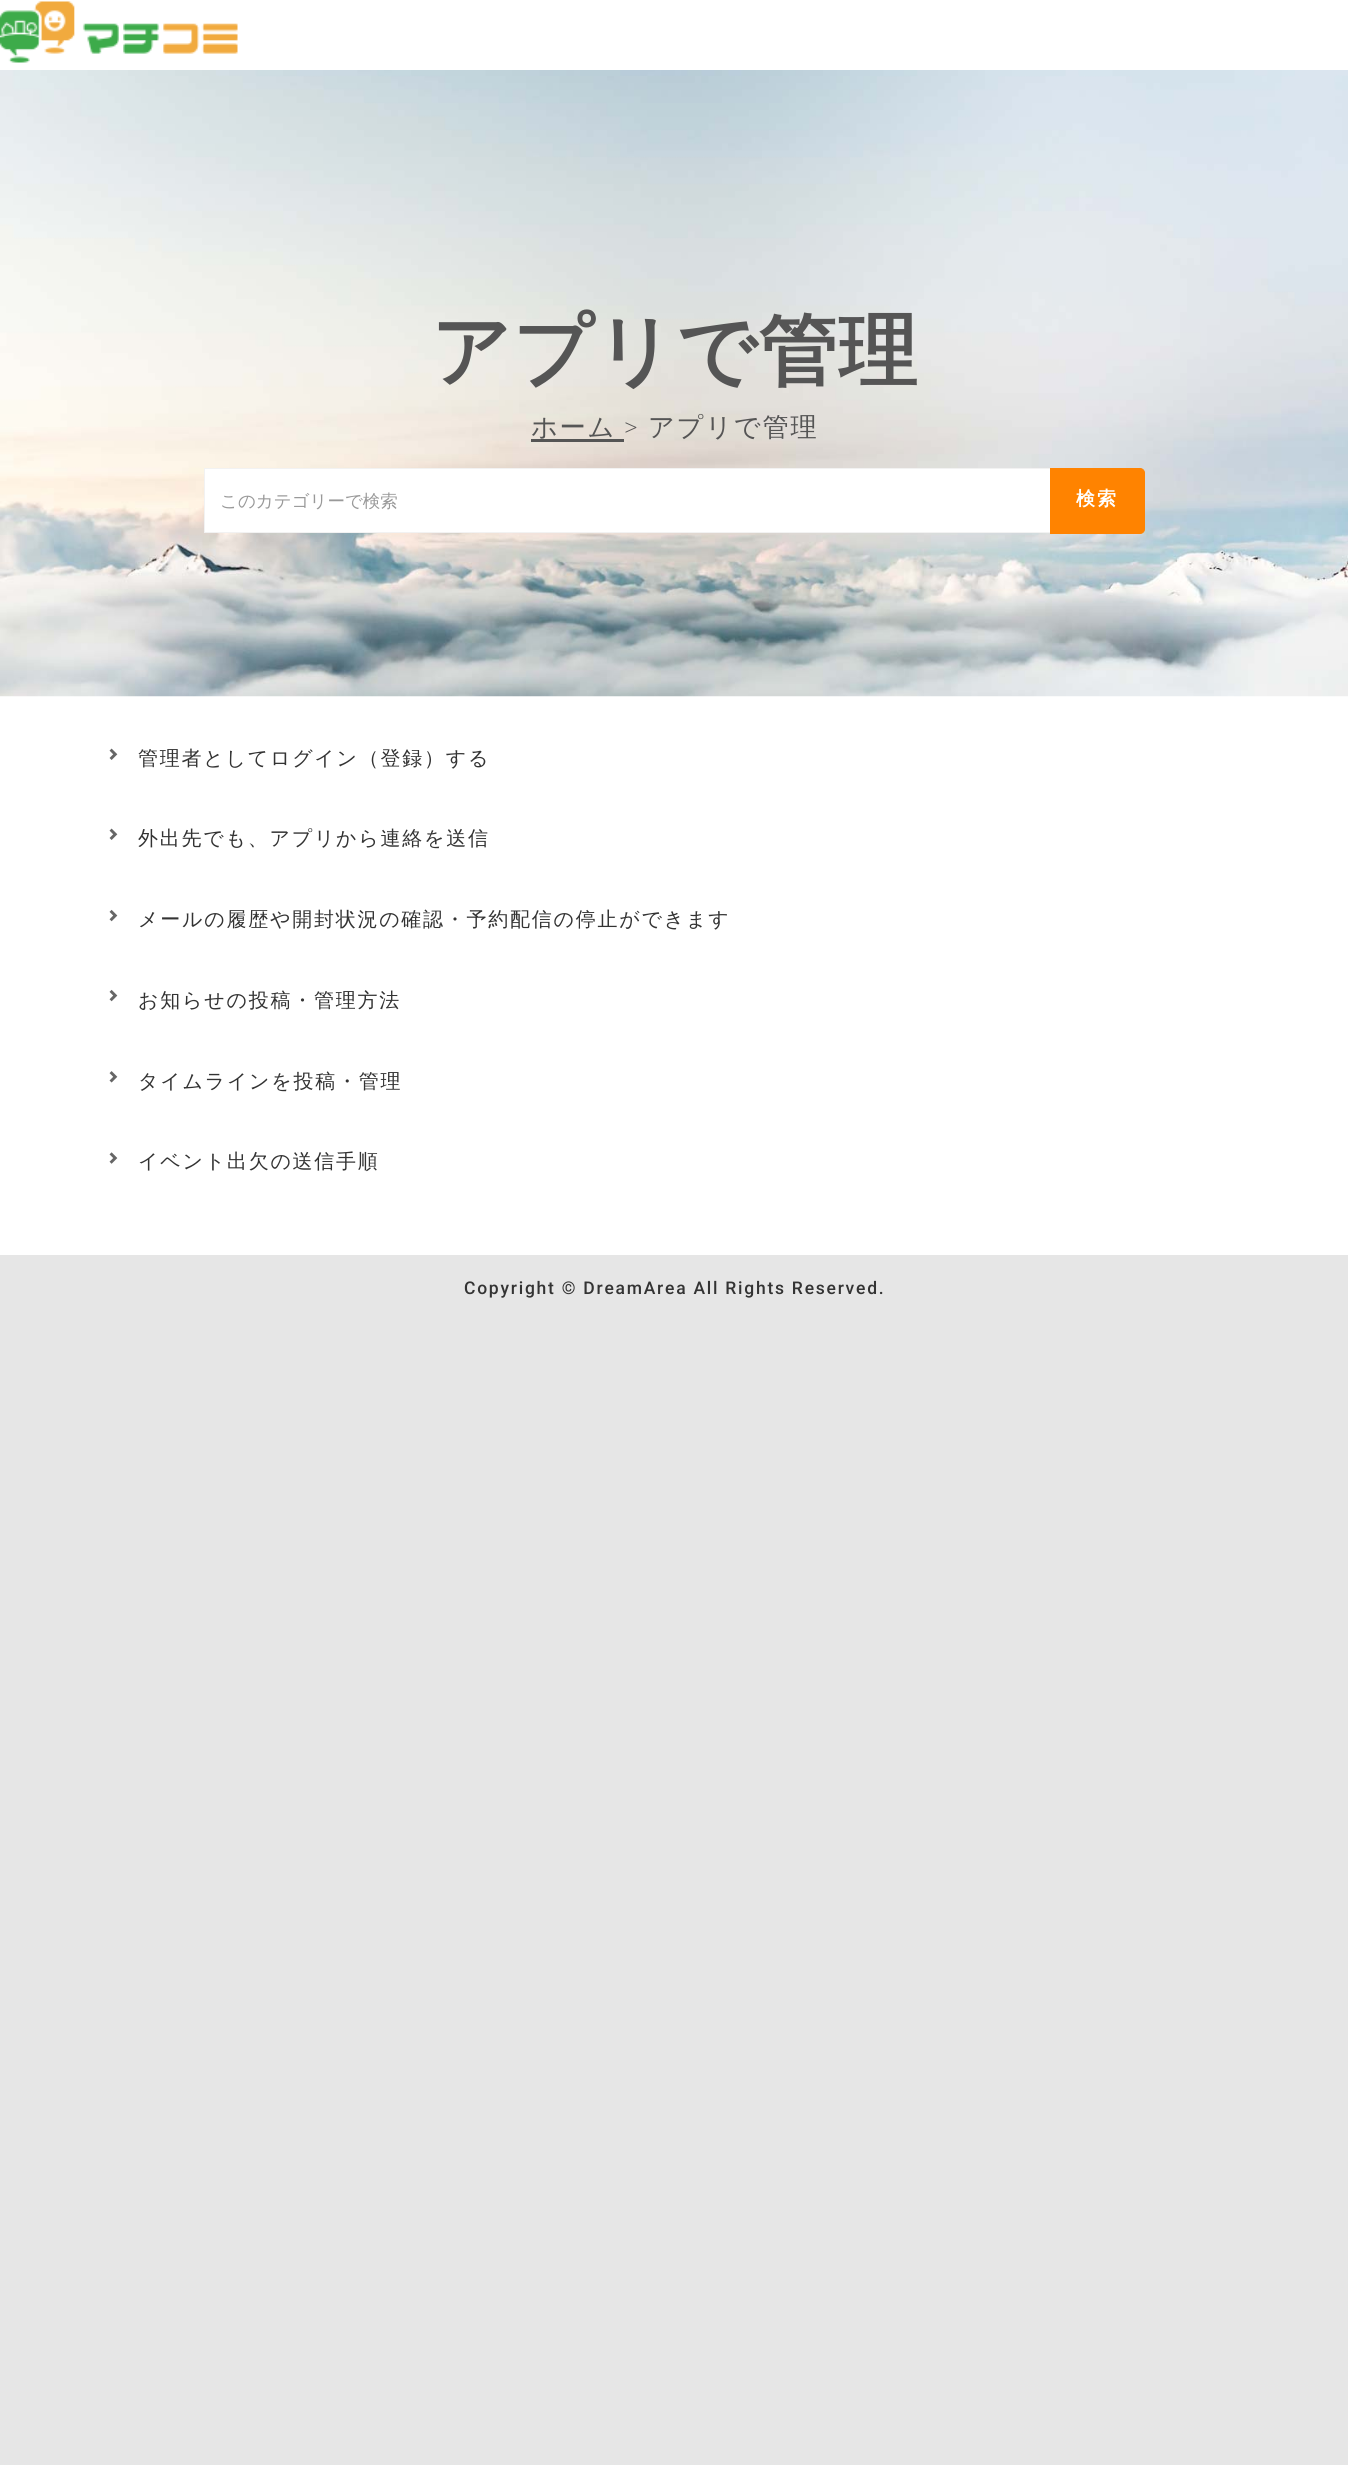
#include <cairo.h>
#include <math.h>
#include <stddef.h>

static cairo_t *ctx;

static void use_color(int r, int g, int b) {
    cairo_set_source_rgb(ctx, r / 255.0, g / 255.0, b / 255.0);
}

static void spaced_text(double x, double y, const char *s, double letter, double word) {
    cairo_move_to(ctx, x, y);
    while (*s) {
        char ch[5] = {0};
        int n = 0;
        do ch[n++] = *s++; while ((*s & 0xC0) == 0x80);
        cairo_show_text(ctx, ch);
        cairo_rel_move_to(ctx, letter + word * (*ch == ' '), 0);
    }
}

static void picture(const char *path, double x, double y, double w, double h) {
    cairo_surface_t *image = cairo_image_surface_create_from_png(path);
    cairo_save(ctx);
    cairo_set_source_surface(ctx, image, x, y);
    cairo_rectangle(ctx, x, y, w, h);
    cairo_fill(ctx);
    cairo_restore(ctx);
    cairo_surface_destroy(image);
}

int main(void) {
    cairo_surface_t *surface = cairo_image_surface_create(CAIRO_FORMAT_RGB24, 1348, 2465);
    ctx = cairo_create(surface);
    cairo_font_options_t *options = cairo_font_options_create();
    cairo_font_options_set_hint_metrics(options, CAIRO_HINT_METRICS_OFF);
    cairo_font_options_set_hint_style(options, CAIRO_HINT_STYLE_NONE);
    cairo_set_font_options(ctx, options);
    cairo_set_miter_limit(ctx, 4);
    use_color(230, 230, 230);
    cairo_paint(ctx);
    use_color(255, 255, 255);
    cairo_rectangle(ctx, 0, 0, 1348, 1255);
    cairo_fill(ctx);
    picture("img1.png", 0, 1, 238, 62);
    picture("img2.png", 0, 70, 1348, 627);
    cairo_select_font_face(ctx, "WenQuanYi Zen Hei", CAIRO_FONT_SLANT_NORMAL, CAIRO_FONT_WEIGHT_BOLD);
    cairo_set_font_size(ctx, 78.75);
    use_color(85, 85, 85);
    spaced_text(431, 378, "アプリで管理", 1.25, 0);
    cairo_select_font_face(ctx, "WenQuanYi Zen Hei Medium", CAIRO_FONT_SLANT_NORMAL, CAIRO_FONT_WEIGHT_NORMAL);
    cairo_set_font_size(ctx, 26.25);
    spaced_text(531, 436, "ホーム", 1.75, 0);
    cairo_rectangle(ctx, 531, 439, 93, 3);
    cairo_fill(ctx);
    cairo_select_font_face(ctx, "Roboto ExtraLight", CAIRO_FONT_SLANT_NORMAL, CAIRO_FONT_WEIGHT_NORMAL);
    spaced_text(624, 436, ">", 1.75, 0);
    cairo_select_font_face(ctx, "WenQuanYi Zen Hei Medium", CAIRO_FONT_SLANT_NORMAL, CAIRO_FONT_WEIGHT_NORMAL);
    spaced_text(648, 436, "アプリで管理", 1.75, 0);
    use_color(255, 255, 255);
    cairo_rectangle(ctx, 204.5, 468.5, 846, 64);
    cairo_fill_preserve(ctx);
    use_color(242, 242, 242);
    cairo_set_line_width(ctx, 1);
    cairo_stroke(ctx);
    cairo_set_font_size(ctx, 17.5);
    use_color(153, 153, 153);
    cairo_move_to(ctx, 220, 507);
    cairo_show_text(ctx, "このカテゴリーで検索");
    use_color(255, 131, 0);
    cairo_new_path(ctx);
    cairo_move_to(ctx, 1050.5, 468.5);
    cairo_line_to(ctx, 1140, 468.5);
    cairo_curve_to(ctx, 1142.5, 468.5, 1144.5, 470.5, 1144.5, 473);
    cairo_line_to(ctx, 1144.5, 529);
    cairo_curve_to(ctx, 1144.5, 531.5, 1142.5, 533.5, 1140, 533.5);
    cairo_line_to(ctx, 1050.5, 533.5);
    cairo_close_path(ctx);
    cairo_fill_preserve(ctx);
    cairo_stroke(ctx);
    cairo_select_font_face(ctx, "WenQuanYi Zen Hei", CAIRO_FONT_SLANT_NORMAL, CAIRO_FONT_WEIGHT_BOLD);
    cairo_set_font_size(ctx, 19);
    use_color(255, 255, 255);
    spaced_text(1076, 505, "検索", 2, 0);
    picture("img3.png", 109, 748, 9, 12);
    cairo_select_font_face(ctx, "WenQuanYi Zen Hei Medium", CAIRO_FONT_SLANT_NORMAL, CAIRO_FONT_WEIGHT_NORMAL);
    cairo_set_font_size(ctx, 20);
    use_color(51, 51, 51);
    spaced_text(138, 765, "管理者としてログイン（登録）する", 1.75, 0);
    picture("img3.png", 109, 828, 9, 12);
    spaced_text(138, 845, "外出先でも、アプリから連絡を送信", 1.75, 0);
    picture("img4.png", 109, 909, 9, 13);
    spaced_text(138, 926, "メールの履歴や開封状況の確認・予約配信の停止ができます", 1.75, 0);
    picture("img4.png", 109, 989, 9, 13);
    spaced_text(138, 1007, "お知らせの投稿・管理方法", 1.75, 0);
    picture("img5.png", 109, 1071, 9, 12);
    spaced_text(138, 1088, "タイムラインを投稿・管理", 1.75, 0);
    picture("img6.png", 109, 1152, 9, 12);
    spaced_text(138, 1168, "イベント出欠の送信手順", 1.75, 0);
    cairo_select_font_face(ctx, "Roboto Medium", CAIRO_FONT_SLANT_NORMAL, CAIRO_FONT_WEIGHT_NORMAL);
    cairo_set_font_size(ctx, 17.5);
    spaced_text(464, 1294, "Copyright © DreamArea All Rights Reserved.", 1.75, 0);
    cairo_surface_write_to_png(surface, "result.png");
    cairo_font_options_destroy(options);
    cairo_destroy(ctx);
    cairo_surface_destroy(surface);
    return 0;
}
